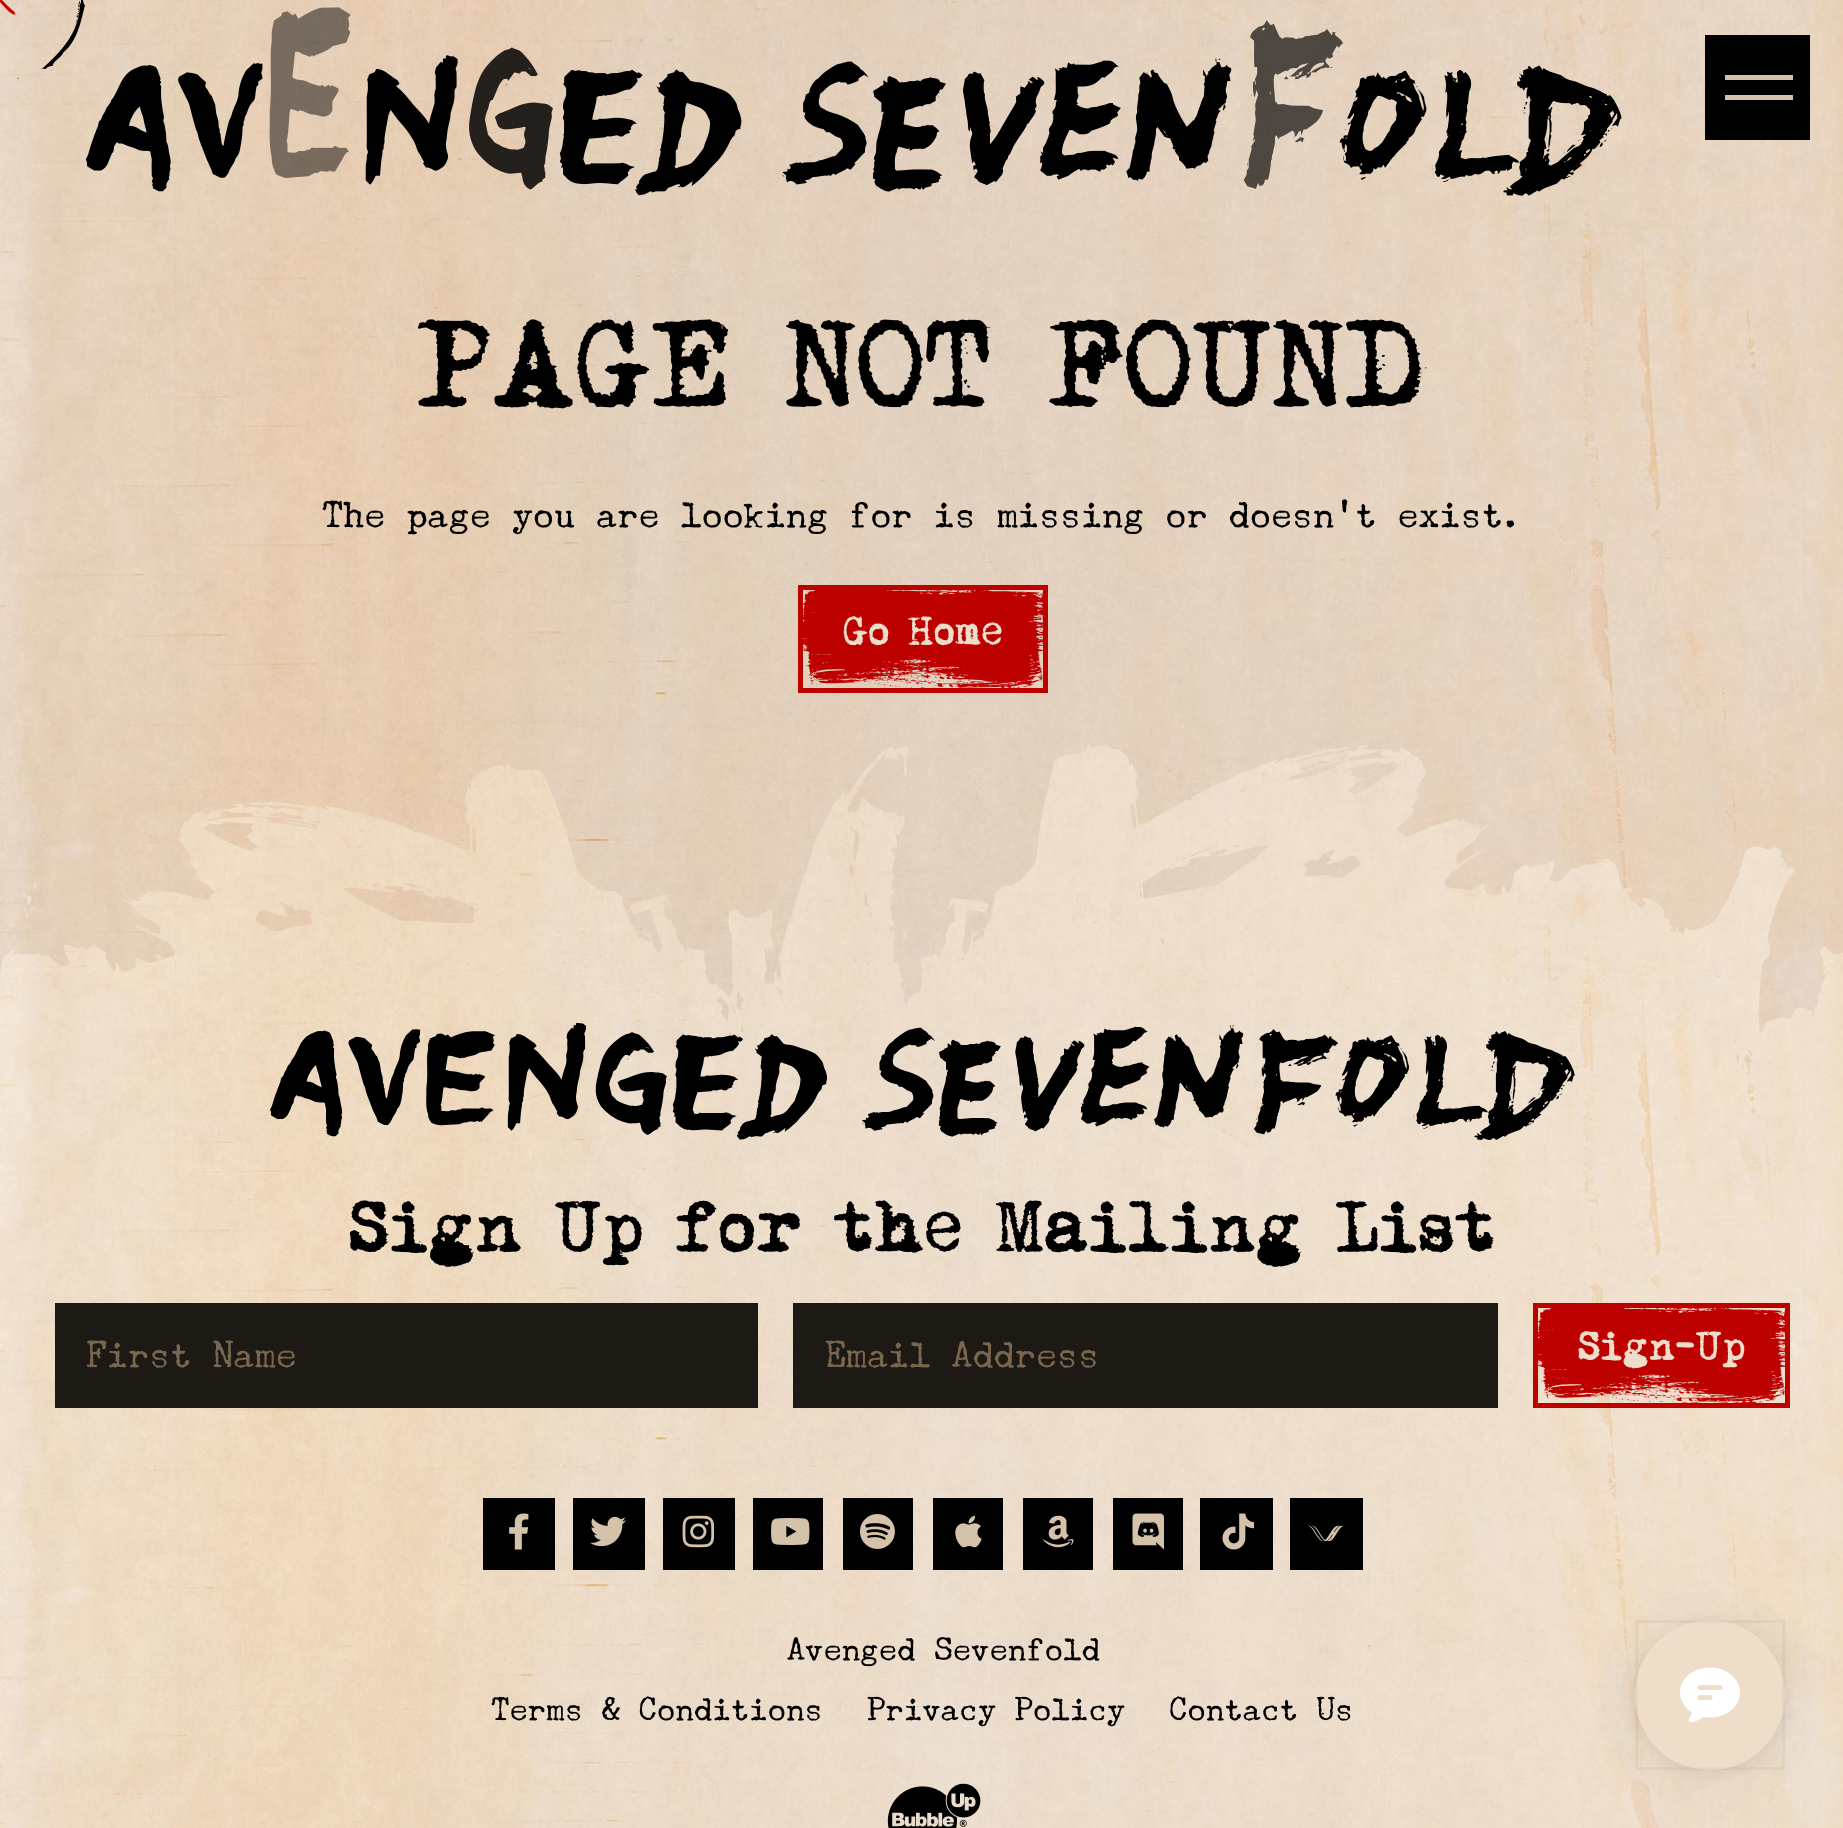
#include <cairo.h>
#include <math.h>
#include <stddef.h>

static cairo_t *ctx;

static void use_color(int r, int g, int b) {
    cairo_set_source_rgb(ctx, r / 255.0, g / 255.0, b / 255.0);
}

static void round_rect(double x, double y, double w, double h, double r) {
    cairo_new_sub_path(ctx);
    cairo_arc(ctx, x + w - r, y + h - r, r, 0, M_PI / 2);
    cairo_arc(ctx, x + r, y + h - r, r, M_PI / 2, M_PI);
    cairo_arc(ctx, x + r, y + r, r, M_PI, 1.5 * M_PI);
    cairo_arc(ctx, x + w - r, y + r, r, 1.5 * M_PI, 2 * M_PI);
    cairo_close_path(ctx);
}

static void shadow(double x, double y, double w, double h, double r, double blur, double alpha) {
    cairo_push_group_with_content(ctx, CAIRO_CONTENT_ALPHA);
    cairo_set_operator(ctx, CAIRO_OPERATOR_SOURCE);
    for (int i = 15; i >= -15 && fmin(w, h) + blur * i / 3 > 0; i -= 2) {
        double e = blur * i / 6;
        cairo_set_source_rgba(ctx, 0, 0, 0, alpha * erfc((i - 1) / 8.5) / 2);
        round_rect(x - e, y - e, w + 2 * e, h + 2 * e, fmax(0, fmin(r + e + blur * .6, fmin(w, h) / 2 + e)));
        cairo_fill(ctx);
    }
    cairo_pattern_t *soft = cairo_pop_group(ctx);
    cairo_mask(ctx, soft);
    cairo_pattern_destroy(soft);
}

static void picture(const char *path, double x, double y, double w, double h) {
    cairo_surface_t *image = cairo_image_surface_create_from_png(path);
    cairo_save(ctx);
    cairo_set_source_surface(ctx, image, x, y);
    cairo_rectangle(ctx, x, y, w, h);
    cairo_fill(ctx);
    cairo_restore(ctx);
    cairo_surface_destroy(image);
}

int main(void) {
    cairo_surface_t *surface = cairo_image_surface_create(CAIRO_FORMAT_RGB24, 1843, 1828);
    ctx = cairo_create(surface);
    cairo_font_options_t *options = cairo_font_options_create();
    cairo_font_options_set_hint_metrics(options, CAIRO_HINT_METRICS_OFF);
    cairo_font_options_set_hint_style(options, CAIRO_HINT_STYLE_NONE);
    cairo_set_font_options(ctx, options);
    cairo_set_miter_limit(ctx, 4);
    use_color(255, 255, 255);
    cairo_paint(ctx);
    picture("img1.png", 0, 0, 1843, 1101);
    picture("img2.png", 0, 0, 85, 80);
    picture("img3.png", 85, 7, 1537, 189);
    use_color(0, 0, 0);
    cairo_rectangle(ctx, 1705, 35, 105, 105);
    cairo_fill(ctx);
    use_color(212, 194, 170);
    cairo_rectangle(ctx, 1725, 75, 68, 5);
    cairo_fill(ctx);
    cairo_rectangle(ctx, 1725, 95, 68, 5);
    cairo_fill(ctx);
    cairo_select_font_face(ctx, "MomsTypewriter", CAIRO_FONT_SLANT_NORMAL, CAIRO_FONT_WEIGHT_NORMAL);
    cairo_set_font_size(ctx, 109.25);
    use_color(0, 0, 0);
    cairo_move_to(ctx, 416, 407);
    cairo_show_text(ctx, "PAGE NOT FOUND");
    cairo_select_font_face(ctx, "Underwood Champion", CAIRO_FONT_SLANT_NORMAL, CAIRO_FONT_WEIGHT_NORMAL);
    cairo_set_font_size(ctx, 36);
    cairo_move_to(ctx, 322, 527);
    cairo_show_text(ctx, "The page you are looking for is missing or doesn't exist.");
    picture("img4.png", 803, 590, 240, 98);
    cairo_rectangle(ctx, 800.5, 587.5, 245, 103);
    use_color(189, 0, 0);
    cairo_set_line_width(ctx, 5);
    cairo_stroke(ctx);
    cairo_select_font_face(ctx, "MomsTypewriter", CAIRO_FONT_SLANT_NORMAL, CAIRO_FONT_WEIGHT_NORMAL);
    use_color(238, 222, 201);
    cairo_move_to(ctx, 843, 645);
    cairo_show_text(ctx, "Go Home");
    picture("img5.png", 0, 745, 1843, 1083);
    picture("img6.png", 270, 1023, 1305, 117);
    cairo_set_font_size(ctx, 64.3);
    use_color(0, 0, 0);
    cairo_move_to(ctx, 349, 1252);
    cairo_show_text(ctx, "Sign Up for the Mailing List");
    use_color(29, 25, 21);
    cairo_rectangle(ctx, 57.5, 1305.5, 698, 100);
    cairo_fill_preserve(ctx);
    cairo_stroke(ctx);
    cairo_select_font_face(ctx, "Underwood Champion", CAIRO_FONT_SLANT_NORMAL, CAIRO_FONT_WEIGHT_NORMAL);
    cairo_set_font_size(ctx, 36);
    use_color(120, 102, 78);
    cairo_move_to(ctx, 86, 1367);
    cairo_show_text(ctx, "First Name");
    use_color(29, 25, 21);
    cairo_rectangle(ctx, 795.5, 1305.5, 700, 100);
    cairo_fill_preserve(ctx);
    cairo_stroke(ctx);
    use_color(120, 102, 78);
    cairo_move_to(ctx, 825, 1367);
    cairo_show_text(ctx, "Email Address");
    picture("img7.png", 1538, 1308, 247, 95);
    cairo_rectangle(ctx, 1535.5, 1305.5, 252, 100);
    use_color(189, 0, 0);
    cairo_stroke(ctx);
    cairo_select_font_face(ctx, "MomsTypewriter", CAIRO_FONT_SLANT_NORMAL, CAIRO_FONT_WEIGHT_NORMAL);
    use_color(238, 222, 201);
    cairo_move_to(ctx, 1578, 1360);
    cairo_show_text(ctx, "Sign-Up");
    use_color(0, 0, 0);
    cairo_rectangle(ctx, 483, 1498, 72, 72);
    cairo_fill(ctx);
    picture("img8.png", 509, 1513, 20, 37);
    cairo_rectangle(ctx, 573, 1498, 72, 72);
    cairo_fill(ctx);
    picture("img9.png", 590, 1516, 36, 31);
    cairo_rectangle(ctx, 663, 1498, 72, 72);
    cairo_fill(ctx);
    picture("img10.png", 682, 1515, 33, 33);
    cairo_rectangle(ctx, 753, 1498, 70, 72);
    cairo_fill(ctx);
    picture("img11.png", 771, 1518, 39, 27);
    cairo_rectangle(ctx, 843, 1498, 70, 72);
    cairo_fill(ctx);
    picture("img12.png", 860, 1514, 35, 35);
    cairo_rectangle(ctx, 933, 1498, 70, 72);
    cairo_fill(ctx);
    picture("img13.png", 955, 1515, 27, 33);
    cairo_rectangle(ctx, 1023, 1498, 70, 72);
    cairo_fill(ctx);
    picture("img14.png", 1043, 1515, 31, 33);
    cairo_rectangle(ctx, 1113, 1498, 70, 72);
    cairo_fill(ctx);
    picture("img15.png", 1132, 1513, 32, 37);
    cairo_rectangle(ctx, 1200, 1498, 73, 72);
    cairo_fill(ctx);
    picture("img16.png", 1222, 1513, 32, 37);
    cairo_rectangle(ctx, 1290, 1498, 73, 72);
    cairo_fill(ctx);
    picture("img17.png", 1308, 1525, 36, 16);
    cairo_select_font_face(ctx, "Underwood Champion", CAIRO_FONT_SLANT_NORMAL, CAIRO_FONT_WEIGHT_NORMAL);
    cairo_set_font_size(ctx, 31.5);
    cairo_move_to(ctx, 745, 1660);
    cairo_show_text(ctx, "© Avenged Sevenfold");
    cairo_move_to(ctx, 491, 1720);
    cairo_show_text(ctx, "Terms & Conditions");
    cairo_move_to(ctx, 867, 1720);
    cairo_show_text(ctx, "Privacy Policy");
    cairo_move_to(ctx, 1169, 1720);
    cairo_show_text(ctx, "Contact Us");
    picture("img18.png", 887, 1783, 94, 45);
    use_color(0, 0, 0);
    shadow(1635, 1625, 150, 150, 75, 30, 0.08);
    shadow(1635, 1623, 150, 150, 75, 7.5, 0.06);
    use_color(238, 222, 201);
    cairo_arc(ctx, 1710, 1695, 75, 0, 2 * M_PI);
    cairo_fill(ctx);
    cairo_rectangle(ctx, 1636.5, 1621.5, 147, 147);
    cairo_set_source_rgba(ctx, 0, 0, 0, 0.04);
    cairo_set_line_width(ctx, 3);
    cairo_stroke(ctx);
    picture("img19.png", 1680, 1667, 60, 56);
    cairo_surface_write_to_png(surface, "result.png");
    cairo_font_options_destroy(options);
    cairo_destroy(ctx);
    cairo_surface_destroy(surface);
    return 0;
}
